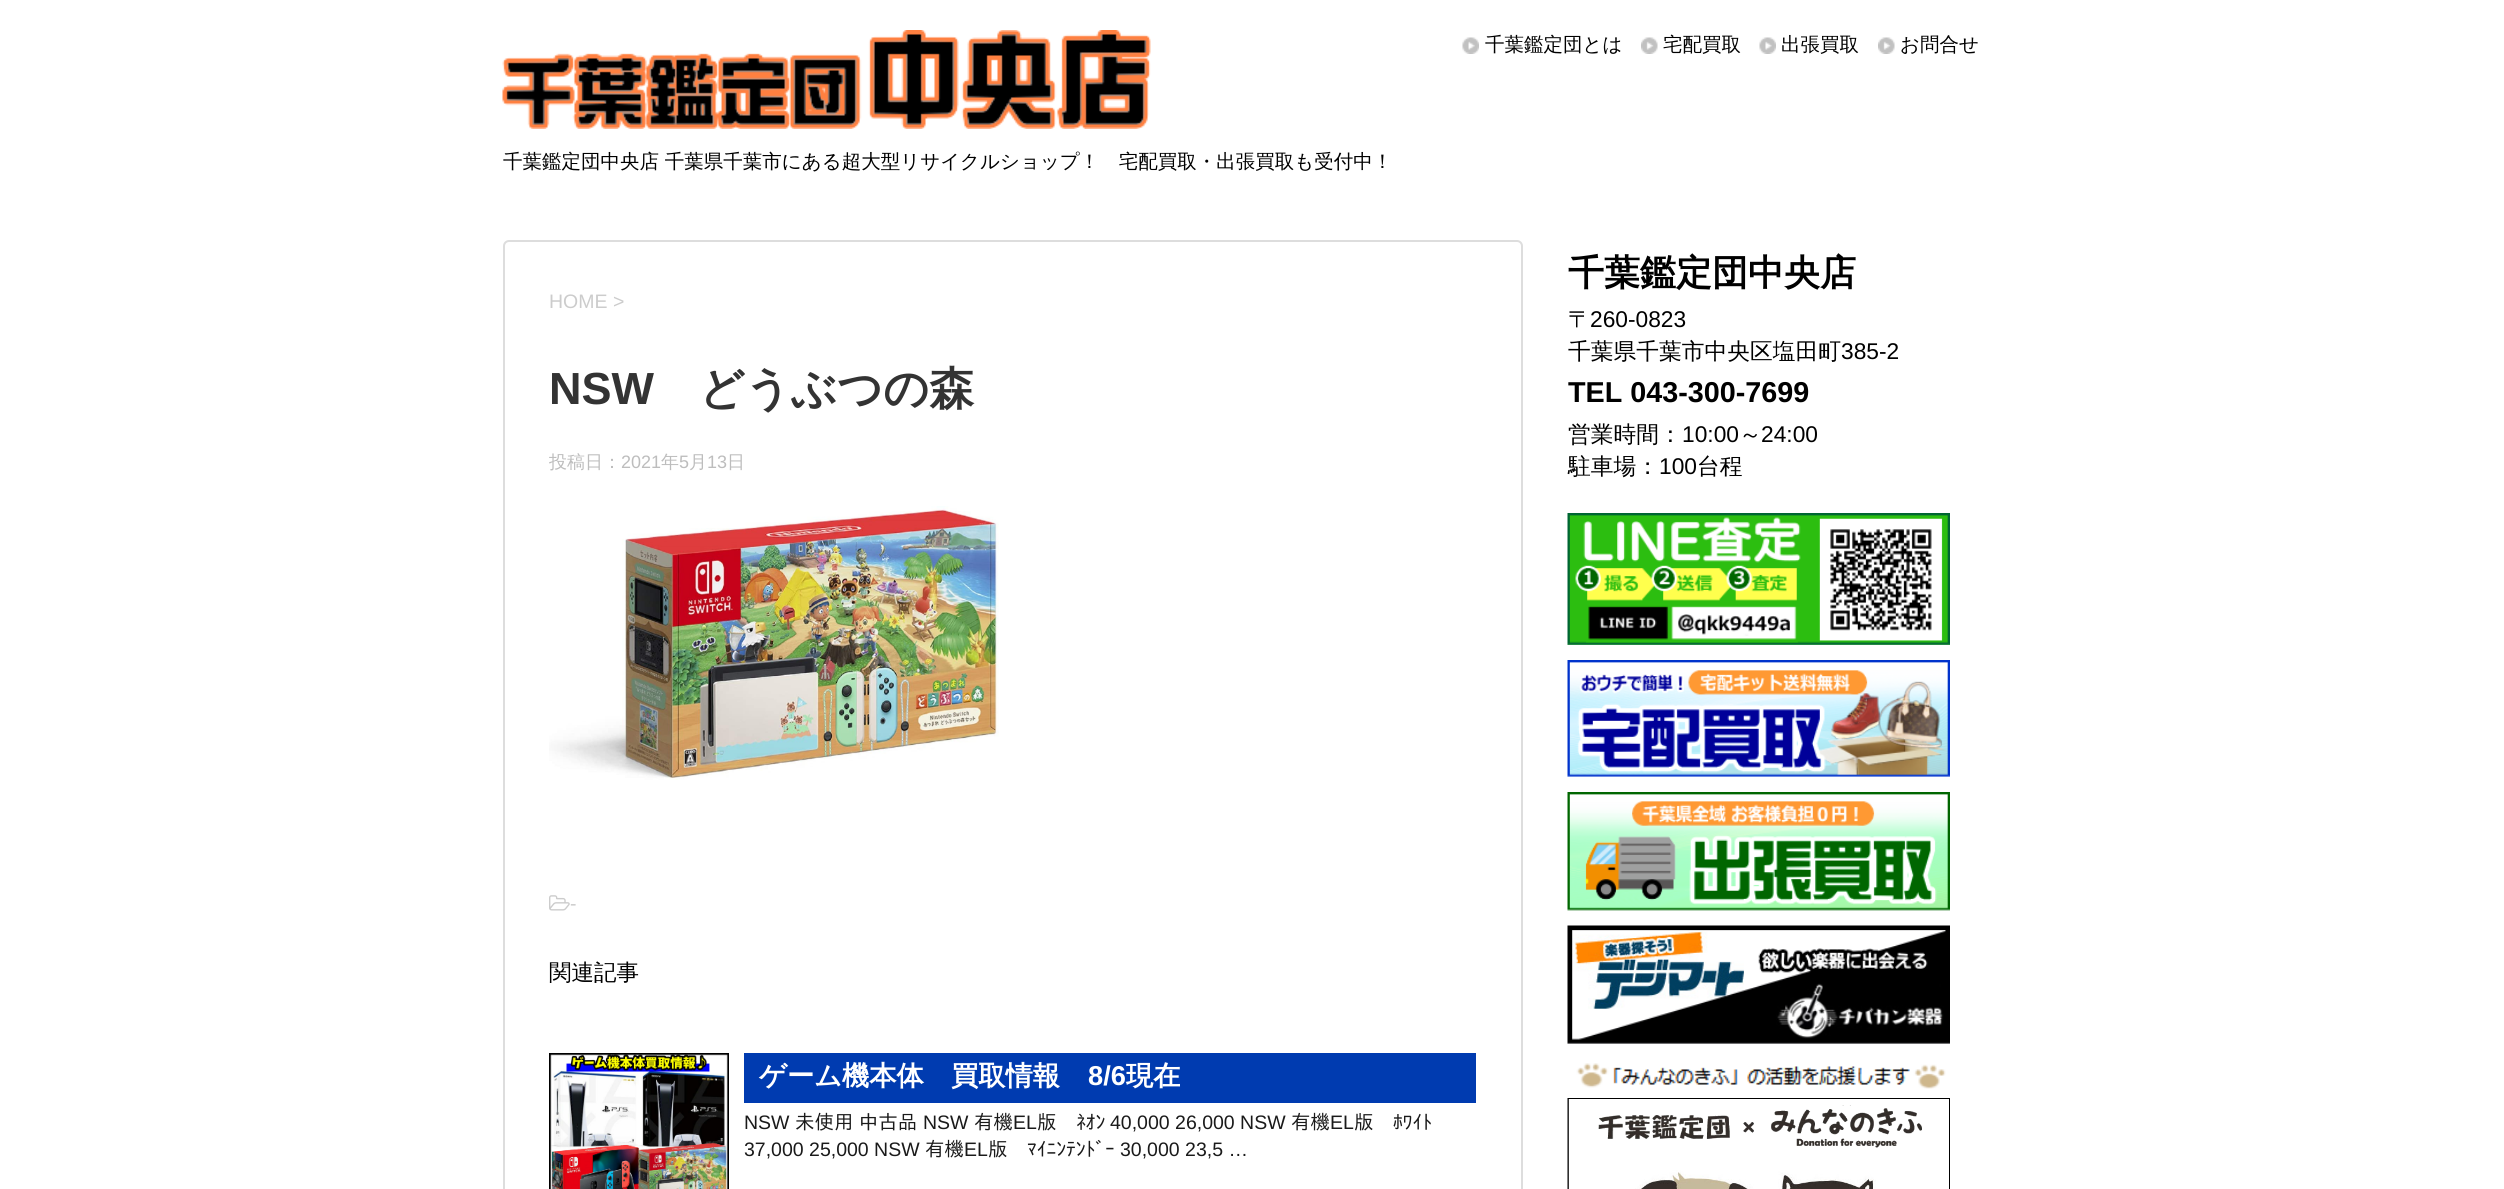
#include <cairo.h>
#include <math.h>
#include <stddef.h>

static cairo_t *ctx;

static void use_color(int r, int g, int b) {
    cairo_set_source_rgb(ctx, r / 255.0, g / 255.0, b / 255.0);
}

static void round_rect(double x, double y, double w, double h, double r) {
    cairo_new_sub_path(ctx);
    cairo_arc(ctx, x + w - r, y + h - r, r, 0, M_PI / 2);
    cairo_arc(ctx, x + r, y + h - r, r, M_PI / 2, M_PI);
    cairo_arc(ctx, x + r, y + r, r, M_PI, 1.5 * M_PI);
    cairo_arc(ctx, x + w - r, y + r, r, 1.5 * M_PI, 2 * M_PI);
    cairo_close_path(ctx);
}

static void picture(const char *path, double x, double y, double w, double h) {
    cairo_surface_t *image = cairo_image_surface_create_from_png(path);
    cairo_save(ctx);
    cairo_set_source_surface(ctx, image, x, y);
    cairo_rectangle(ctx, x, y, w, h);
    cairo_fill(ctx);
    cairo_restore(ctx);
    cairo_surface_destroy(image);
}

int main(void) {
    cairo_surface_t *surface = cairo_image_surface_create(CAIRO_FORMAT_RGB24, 2504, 1189);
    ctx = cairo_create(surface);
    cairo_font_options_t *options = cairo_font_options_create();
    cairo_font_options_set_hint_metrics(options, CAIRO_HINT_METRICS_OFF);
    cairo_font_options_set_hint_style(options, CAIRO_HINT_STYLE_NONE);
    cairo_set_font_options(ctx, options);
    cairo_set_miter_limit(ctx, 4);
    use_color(255, 255, 255);
    cairo_paint(ctx);
    picture("img1.png", 1462, 37, 17, 17);
    cairo_select_font_face(ctx, "WenQuanYi Zen Hei Medium", CAIRO_FONT_SLANT_NORMAL, CAIRO_FONT_WEIGHT_NORMAL);
    cairo_set_font_size(ctx, 19.5);
    use_color(0, 0, 0);
    cairo_move_to(ctx, 1485, 51);
    cairo_show_text(ctx, "千葉鑑定団とは");
    picture("img2.png", 1641, 37, 17, 17);
    cairo_move_to(ctx, 1663, 51);
    cairo_show_text(ctx, "宅配買取");
    picture("img3.png", 1759, 37, 17, 17);
    cairo_move_to(ctx, 1781, 51);
    cairo_show_text(ctx, "出張買取");
    picture("img4.png", 1878, 37, 17, 17);
    cairo_move_to(ctx, 1900, 51);
    cairo_show_text(ctx, "お問合せ");
    picture("img5.png", 502, 30, 649, 99);
    cairo_move_to(ctx, 503, 168);
    cairo_show_text(ctx, "千葉鑑定団中央店 千葉県千葉市にある超大型リサイクルショップ！　宅配買取・出張買取も受付中！");
    round_rect(504, 241, 1018, 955, 5);
    use_color(221, 221, 221);
    cairo_stroke(ctx);
    cairo_select_font_face(ctx, "Liberation Sans", CAIRO_FONT_SLANT_NORMAL, CAIRO_FONT_WEIGHT_NORMAL);
    use_color(204, 204, 204);
    cairo_move_to(ctx, 549, 308);
    cairo_show_text(ctx, "HOME >");
    cairo_select_font_face(ctx, "Liberation Sans", CAIRO_FONT_SLANT_NORMAL, CAIRO_FONT_WEIGHT_BOLD);
    cairo_set_font_size(ctx, 45);
    use_color(51, 51, 51);
    cairo_move_to(ctx, 549, 404);
    cairo_show_text(ctx, "NSW");
    cairo_select_font_face(ctx, "WenQuanYi Zen Hei", CAIRO_FONT_SLANT_NORMAL, CAIRO_FONT_WEIGHT_BOLD);
    cairo_move_to(ctx, 699, 404);
    cairo_show_text(ctx, "どうぶつの森");
    cairo_select_font_face(ctx, "WenQuanYi Zen Hei Medium", CAIRO_FONT_SLANT_NORMAL, CAIRO_FONT_WEIGHT_NORMAL);
    cairo_set_font_size(ctx, 18);
    use_color(189, 189, 189);
    cairo_move_to(ctx, 549, 468);
    cairo_show_text(ctx, "投稿日：");
    cairo_select_font_face(ctx, "Liberation Sans", CAIRO_FONT_SLANT_NORMAL, CAIRO_FONT_WEIGHT_NORMAL);
    cairo_move_to(ctx, 621, 468);
    cairo_show_text(ctx, "2021");
    cairo_select_font_face(ctx, "WenQuanYi Zen Hei Medium", CAIRO_FONT_SLANT_NORMAL, CAIRO_FONT_WEIGHT_NORMAL);
    cairo_move_to(ctx, 661, 468);
    cairo_show_text(ctx, "年");
    cairo_select_font_face(ctx, "Liberation Sans", CAIRO_FONT_SLANT_NORMAL, CAIRO_FONT_WEIGHT_NORMAL);
    cairo_move_to(ctx, 679, 468);
    cairo_show_text(ctx, "5");
    cairo_select_font_face(ctx, "WenQuanYi Zen Hei Medium", CAIRO_FONT_SLANT_NORMAL, CAIRO_FONT_WEIGHT_NORMAL);
    cairo_move_to(ctx, 689, 468);
    cairo_show_text(ctx, "月");
    cairo_select_font_face(ctx, "Liberation Sans", CAIRO_FONT_SLANT_NORMAL, CAIRO_FONT_WEIGHT_NORMAL);
    cairo_move_to(ctx, 707, 468);
    cairo_show_text(ctx, "13");
    cairo_select_font_face(ctx, "WenQuanYi Zen Hei Medium", CAIRO_FONT_SLANT_NORMAL, CAIRO_FONT_WEIGHT_NORMAL);
    cairo_move_to(ctx, 727, 468);
    cairo_show_text(ctx, "日");
    picture("img6.png", 549, 506, 450, 274);
    picture("img7.png", 549, 895, 21, 16);
    cairo_select_font_face(ctx, "Liberation Sans", CAIRO_FONT_SLANT_NORMAL, CAIRO_FONT_WEIGHT_NORMAL);
    cairo_set_font_size(ctx, 19.5);
    use_color(204, 204, 204);
    cairo_move_to(ctx, 570, 910);
    cairo_show_text(ctx, "-");
    cairo_select_font_face(ctx, "WenQuanYi Zen Hei Medium", CAIRO_FONT_SLANT_NORMAL, CAIRO_FONT_WEIGHT_NORMAL);
    cairo_set_font_size(ctx, 22.5);
    use_color(0, 0, 0);
    cairo_move_to(ctx, 549, 980);
    cairo_show_text(ctx, "関連記事");
    picture("img8.png", 549, 1053, 180, 136);
    use_color(0, 59, 176);
    cairo_rectangle(ctx, 744, 1053, 732, 50);
    cairo_fill(ctx);
    cairo_select_font_face(ctx, "WenQuanYi Zen Hei", CAIRO_FONT_SLANT_NORMAL, CAIRO_FONT_WEIGHT_BOLD);
    cairo_set_font_size(ctx, 27.25);
    use_color(255, 255, 255);
    cairo_move_to(ctx, 759, 1085);
    cairo_show_text(ctx, "ゲーム機本体　買取情報");
    cairo_select_font_face(ctx, "Liberation Sans", CAIRO_FONT_SLANT_NORMAL, CAIRO_FONT_WEIGHT_BOLD);
    cairo_move_to(ctx, 1088, 1085);
    cairo_show_text(ctx, "8/6");
    cairo_select_font_face(ctx, "WenQuanYi Zen Hei", CAIRO_FONT_SLANT_NORMAL, CAIRO_FONT_WEIGHT_BOLD);
    cairo_move_to(ctx, 1126, 1085);
    cairo_show_text(ctx, "現在");
    cairo_select_font_face(ctx, "Liberation Sans", CAIRO_FONT_SLANT_NORMAL, CAIRO_FONT_WEIGHT_NORMAL);
    cairo_set_font_size(ctx, 19.5);
    use_color(26, 26, 26);
    cairo_move_to(ctx, 744, 1129);
    cairo_show_text(ctx, "NSW");
    cairo_select_font_face(ctx, "IPAPGothic", CAIRO_FONT_SLANT_NORMAL, CAIRO_FONT_WEIGHT_NORMAL);
    cairo_move_to(ctx, 795, 1129);
    cairo_show_text(ctx, "未使用 中古品");
    cairo_select_font_face(ctx, "Liberation Sans", CAIRO_FONT_SLANT_NORMAL, CAIRO_FONT_WEIGHT_NORMAL);
    cairo_move_to(ctx, 923, 1129);
    cairo_show_text(ctx, "NSW");
    cairo_select_font_face(ctx, "IPAPGothic", CAIRO_FONT_SLANT_NORMAL, CAIRO_FONT_WEIGHT_NORMAL);
    cairo_move_to(ctx, 974, 1129);
    cairo_show_text(ctx, "有機");
    cairo_select_font_face(ctx, "Liberation Sans", CAIRO_FONT_SLANT_NORMAL, CAIRO_FONT_WEIGHT_NORMAL);
    cairo_move_to(ctx, 1013, 1129);
    cairo_show_text(ctx, "EL");
    cairo_select_font_face(ctx, "IPAPGothic", CAIRO_FONT_SLANT_NORMAL, CAIRO_FONT_WEIGHT_NORMAL);
    cairo_move_to(ctx, 1037, 1129);
    cairo_show_text(ctx, "版　ﾈｵﾝ");
    cairo_select_font_face(ctx, "Liberation Sans", CAIRO_FONT_SLANT_NORMAL, CAIRO_FONT_WEIGHT_NORMAL);
    cairo_move_to(ctx, 1110, 1129);
    cairo_show_text(ctx, "40,000 26,000 NSW");
    cairo_select_font_face(ctx, "IPAPGothic", CAIRO_FONT_SLANT_NORMAL, CAIRO_FONT_WEIGHT_NORMAL);
    cairo_move_to(ctx, 1291, 1129);
    cairo_show_text(ctx, "有機");
    cairo_select_font_face(ctx, "Liberation Sans", CAIRO_FONT_SLANT_NORMAL, CAIRO_FONT_WEIGHT_NORMAL);
    cairo_move_to(ctx, 1330, 1129);
    cairo_show_text(ctx, "EL");
    cairo_select_font_face(ctx, "IPAPGothic", CAIRO_FONT_SLANT_NORMAL, CAIRO_FONT_WEIGHT_NORMAL);
    cairo_move_to(ctx, 1354, 1129);
    cairo_show_text(ctx, "版　ﾎﾜｲﾄ");
    cairo_select_font_face(ctx, "Liberation Sans", CAIRO_FONT_SLANT_NORMAL, CAIRO_FONT_WEIGHT_NORMAL);
    cairo_move_to(ctx, 744, 1156);
    cairo_show_text(ctx, "37,000 25,000 NSW");
    cairo_select_font_face(ctx, "IPAPGothic", CAIRO_FONT_SLANT_NORMAL, CAIRO_FONT_WEIGHT_NORMAL);
    cairo_move_to(ctx, 925, 1156);
    cairo_show_text(ctx, "有機");
    cairo_select_font_face(ctx, "Liberation Sans", CAIRO_FONT_SLANT_NORMAL, CAIRO_FONT_WEIGHT_NORMAL);
    cairo_move_to(ctx, 964, 1156);
    cairo_show_text(ctx, "EL");
    cairo_select_font_face(ctx, "IPAPGothic", CAIRO_FONT_SLANT_NORMAL, CAIRO_FONT_WEIGHT_NORMAL);
    cairo_move_to(ctx, 988, 1156);
    cairo_show_text(ctx, "版　ﾏｲﾆﾝﾃﾝﾄﾞｰ");
    cairo_select_font_face(ctx, "Liberation Sans", CAIRO_FONT_SLANT_NORMAL, CAIRO_FONT_WEIGHT_NORMAL);
    cairo_move_to(ctx, 1120, 1156);
    cairo_show_text(ctx, "30,000 23,5 …");
    cairo_select_font_face(ctx, "WenQuanYi Zen Hei", CAIRO_FONT_SLANT_NORMAL, CAIRO_FONT_WEIGHT_BOLD);
    cairo_set_font_size(ctx, 36);
    use_color(0, 0, 0);
    cairo_move_to(ctx, 1568, 285);
    cairo_show_text(ctx, "千葉鑑定団中央店");
    cairo_select_font_face(ctx, "WenQuanYi Zen Hei Medium", CAIRO_FONT_SLANT_NORMAL, CAIRO_FONT_WEIGHT_NORMAL);
    cairo_set_font_size(ctx, 22.75);
    cairo_move_to(ctx, 1568, 327);
    cairo_show_text(ctx, "〒");
    cairo_select_font_face(ctx, "Liberation Sans", CAIRO_FONT_SLANT_NORMAL, CAIRO_FONT_WEIGHT_NORMAL);
    cairo_move_to(ctx, 1590, 327);
    cairo_show_text(ctx, "260-0823");
    cairo_select_font_face(ctx, "WenQuanYi Zen Hei Medium", CAIRO_FONT_SLANT_NORMAL, CAIRO_FONT_WEIGHT_NORMAL);
    cairo_move_to(ctx, 1568, 359);
    cairo_show_text(ctx, "千葉県千葉市中央区塩田町");
    cairo_select_font_face(ctx, "Liberation Sans", CAIRO_FONT_SLANT_NORMAL, CAIRO_FONT_WEIGHT_NORMAL);
    cairo_move_to(ctx, 1841, 359);
    cairo_show_text(ctx, "385-2");
    cairo_select_font_face(ctx, "Liberation Sans", CAIRO_FONT_SLANT_NORMAL, CAIRO_FONT_WEIGHT_BOLD);
    cairo_set_font_size(ctx, 28.75);
    cairo_move_to(ctx, 1568, 402);
    cairo_show_text(ctx, "TEL 043-300-7699");
    cairo_select_font_face(ctx, "WenQuanYi Zen Hei Medium", CAIRO_FONT_SLANT_NORMAL, CAIRO_FONT_WEIGHT_NORMAL);
    cairo_set_font_size(ctx, 22.75);
    cairo_move_to(ctx, 1568, 442);
    cairo_show_text(ctx, "営業時間：");
    cairo_select_font_face(ctx, "Liberation Sans", CAIRO_FONT_SLANT_NORMAL, CAIRO_FONT_WEIGHT_NORMAL);
    cairo_move_to(ctx, 1682, 442);
    cairo_show_text(ctx, "10:00");
    cairo_select_font_face(ctx, "WenQuanYi Zen Hei Medium", CAIRO_FONT_SLANT_NORMAL, CAIRO_FONT_WEIGHT_NORMAL);
    cairo_move_to(ctx, 1739, 442);
    cairo_show_text(ctx, "～");
    cairo_select_font_face(ctx, "Liberation Sans", CAIRO_FONT_SLANT_NORMAL, CAIRO_FONT_WEIGHT_NORMAL);
    cairo_move_to(ctx, 1761, 442);
    cairo_show_text(ctx, "24:00");
    cairo_select_font_face(ctx, "WenQuanYi Zen Hei Medium", CAIRO_FONT_SLANT_NORMAL, CAIRO_FONT_WEIGHT_NORMAL);
    cairo_move_to(ctx, 1568, 474);
    cairo_show_text(ctx, "駐車場：");
    cairo_select_font_face(ctx, "Liberation Sans", CAIRO_FONT_SLANT_NORMAL, CAIRO_FONT_WEIGHT_NORMAL);
    cairo_move_to(ctx, 1659, 474);
    cairo_show_text(ctx, "100");
    cairo_select_font_face(ctx, "WenQuanYi Zen Hei Medium", CAIRO_FONT_SLANT_NORMAL, CAIRO_FONT_WEIGHT_NORMAL);
    cairo_move_to(ctx, 1697, 474);
    cairo_show_text(ctx, "台程");
    picture("img9.png", 1567, 513, 383, 132);
    picture("img10.png", 1567, 660, 383, 117);
    picture("img11.png", 1567, 792, 383, 119);
    picture("img12.png", 1567, 925, 383, 119);
    picture("img13.png", 1576, 1063, 370, 26);
    picture("img14.png", 1567, 1098, 383, 91);
    cairo_surface_write_to_png(surface, "result.png");
    cairo_font_options_destroy(options);
    cairo_destroy(ctx);
    cairo_surface_destroy(surface);
    return 0;
}
